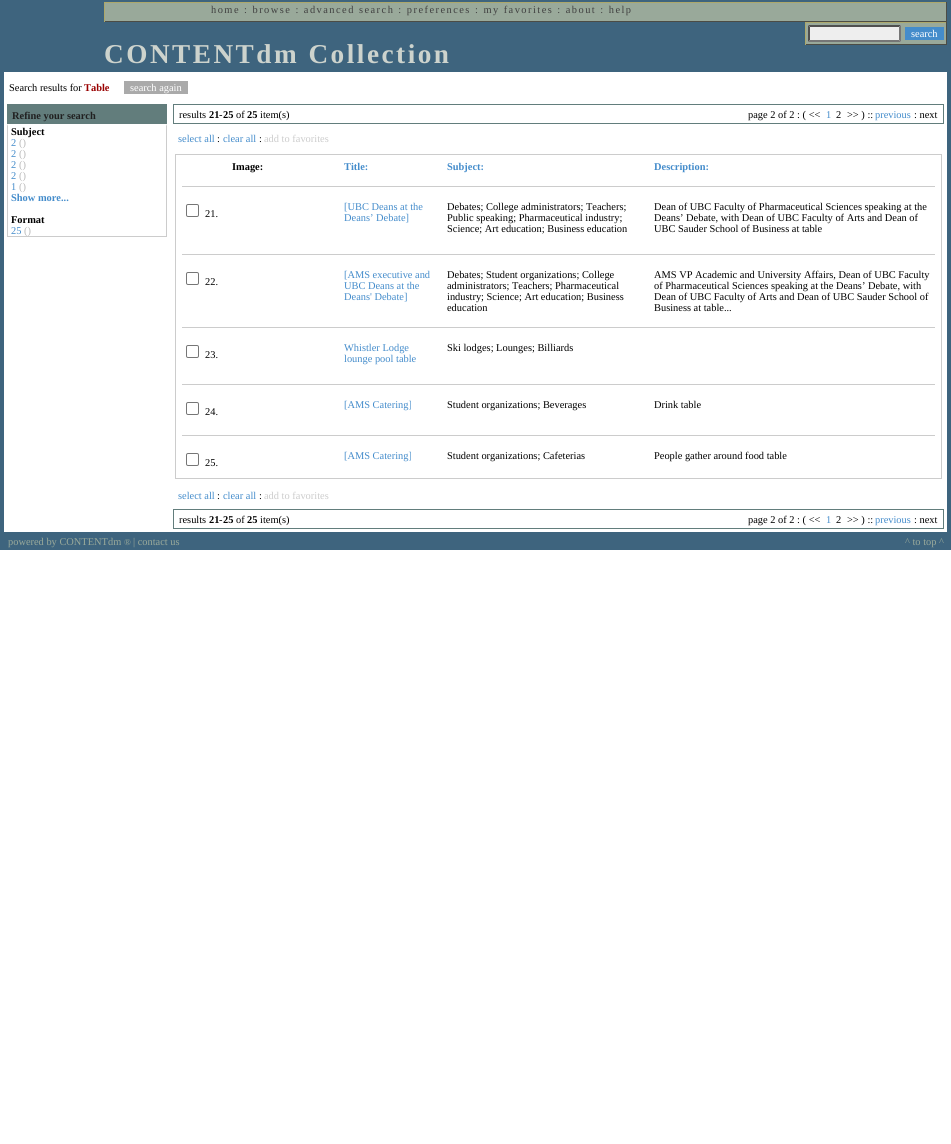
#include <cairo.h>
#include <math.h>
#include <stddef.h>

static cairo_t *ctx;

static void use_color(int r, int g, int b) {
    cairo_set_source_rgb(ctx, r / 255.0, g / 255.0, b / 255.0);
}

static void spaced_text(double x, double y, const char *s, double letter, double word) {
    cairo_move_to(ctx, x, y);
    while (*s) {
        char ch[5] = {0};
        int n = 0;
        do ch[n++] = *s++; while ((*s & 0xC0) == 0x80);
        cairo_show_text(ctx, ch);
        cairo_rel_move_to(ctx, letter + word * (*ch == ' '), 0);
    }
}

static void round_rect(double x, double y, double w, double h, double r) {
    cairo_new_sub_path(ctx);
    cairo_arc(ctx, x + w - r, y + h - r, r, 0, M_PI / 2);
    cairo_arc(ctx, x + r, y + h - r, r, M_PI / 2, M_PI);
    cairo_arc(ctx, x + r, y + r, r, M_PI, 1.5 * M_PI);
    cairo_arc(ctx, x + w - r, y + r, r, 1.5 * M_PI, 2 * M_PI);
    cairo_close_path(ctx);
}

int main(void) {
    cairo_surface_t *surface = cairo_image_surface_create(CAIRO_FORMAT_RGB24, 951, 1144);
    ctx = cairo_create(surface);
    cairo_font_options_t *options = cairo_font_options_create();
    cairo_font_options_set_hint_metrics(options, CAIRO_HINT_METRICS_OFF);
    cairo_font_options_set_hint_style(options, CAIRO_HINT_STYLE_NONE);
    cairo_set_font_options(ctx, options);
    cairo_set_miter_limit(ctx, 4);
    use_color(255, 255, 255);
    cairo_paint(ctx);
    use_color(62, 100, 126);
    cairo_rectangle(ctx, 0, 0, 4, 550);
    cairo_fill(ctx);
    cairo_rectangle(ctx, 4, 0, 943, 72);
    cairo_fill(ctx);
    use_color(153, 169, 154);
    cairo_rectangle(ctx, 105, 3, 841, 18);
    cairo_fill(ctx);
    use_color(173, 168, 107);
    cairo_rectangle(ctx, 104, 2, 843, 1);
    cairo_fill(ctx);
    use_color(76, 76, 69);
    cairo_rectangle(ctx, 104, 21, 832, 1);
    cairo_fill(ctx);
    use_color(173, 168, 107);
    cairo_rectangle(ctx, 104, 2, 1, 20);
    cairo_fill(ctx);
    cairo_select_font_face(ctx, "Liberation Serif", CAIRO_FONT_SLANT_NORMAL, CAIRO_FONT_WEIGHT_NORMAL);
    cairo_set_font_size(ctx, 10.4);
    use_color(64, 64, 64);
    spaced_text(211, 13, "home : browse : advanced search : preferences : my favorites : about : help", 1.47, 0);
    use_color(76, 76, 69);
    cairo_rectangle(ctx, 946, 2, 1, 20);
    cairo_fill(ctx);
    cairo_rectangle(ctx, 936, 21, 11, 1);
    cairo_fill(ctx);
    use_color(153, 169, 154);
    cairo_rectangle(ctx, 806, 23, 140, 21);
    cairo_fill(ctx);
    use_color(173, 168, 107);
    cairo_rectangle(ctx, 805, 22, 142, 1);
    cairo_fill(ctx);
    use_color(76, 76, 69);
    cairo_rectangle(ctx, 805, 44, 98, 1);
    cairo_fill(ctx);
    use_color(173, 168, 107);
    cairo_rectangle(ctx, 805, 22, 1, 23);
    cairo_fill(ctx);
    use_color(238, 238, 238);
    cairo_rectangle(ctx, 808, 25, 93, 17);
    cairo_fill(ctx);
    use_color(79, 79, 79);
    cairo_new_path(ctx);
    cairo_move_to(ctx, 808, 25);
    cairo_line_to(ctx, 901, 25);
    cairo_line_to(ctx, 899, 27);
    cairo_line_to(ctx, 810, 27);
    cairo_close_path(ctx);
    cairo_fill(ctx);
    use_color(118, 118, 118);
    cairo_new_path(ctx);
    cairo_move_to(ctx, 901, 25);
    cairo_line_to(ctx, 901, 42);
    cairo_line_to(ctx, 899, 40);
    cairo_line_to(ctx, 899, 27);
    cairo_close_path(ctx);
    cairo_fill(ctx);
    cairo_new_path(ctx);
    cairo_move_to(ctx, 901, 42);
    cairo_line_to(ctx, 808, 42);
    cairo_line_to(ctx, 810, 40);
    cairo_line_to(ctx, 899, 40);
    cairo_close_path(ctx);
    cairo_fill(ctx);
    use_color(79, 79, 79);
    cairo_new_path(ctx);
    cairo_move_to(ctx, 808, 42);
    cairo_line_to(ctx, 808, 25);
    cairo_line_to(ctx, 810, 27);
    cairo_line_to(ctx, 810, 40);
    cairo_close_path(ctx);
    cairo_fill(ctx);
    use_color(76, 76, 69);
    cairo_rectangle(ctx, 946, 22, 1, 23);
    cairo_fill(ctx);
    cairo_rectangle(ctx, 903, 44, 44, 1);
    cairo_fill(ctx);
    use_color(68, 140, 203);
    cairo_rectangle(ctx, 905, 27, 39, 13);
    cairo_fill(ctx);
    use_color(255, 255, 255);
    cairo_move_to(ctx, 911, 37);
    cairo_show_text(ctx, "search");
    cairo_select_font_face(ctx, "Liberation Serif", CAIRO_FONT_SLANT_NORMAL, CAIRO_FONT_WEIGHT_BOLD);
    cairo_set_font_size(ctx, 27.25);
    use_color(205, 211, 205);
    spaced_text(104, 63, "CONTENTdm Collection", 2.5, 0);
    use_color(62, 100, 126);
    cairo_rectangle(ctx, 947, 0, 4, 550);
    cairo_fill(ctx);
    cairo_select_font_face(ctx, "Liberation Serif", CAIRO_FONT_SLANT_NORMAL, CAIRO_FONT_WEIGHT_NORMAL);
    cairo_set_font_size(ctx, 10.4);
    use_color(0, 0, 0);
    cairo_move_to(ctx, 9, 91);
    cairo_show_text(ctx, "Search results for");
    cairo_select_font_face(ctx, "Liberation Serif", CAIRO_FONT_SLANT_NORMAL, CAIRO_FONT_WEIGHT_BOLD);
    use_color(153, 0, 0);
    cairo_move_to(ctx, 84, 91);
    cairo_show_text(ctx, "Table");
    use_color(170, 170, 170);
    cairo_rectangle(ctx, 124, 81, 64, 13);
    cairo_fill(ctx);
    cairo_select_font_face(ctx, "Liberation Serif", CAIRO_FONT_SLANT_NORMAL, CAIRO_FONT_WEIGHT_NORMAL);
    use_color(255, 255, 255);
    cairo_move_to(ctx, 130, 91);
    cairo_show_text(ctx, "search again");
    use_color(98, 125, 124);
    cairo_rectangle(ctx, 7, 104, 160, 20);
    cairo_fill(ctx);
    cairo_select_font_face(ctx, "Liberation Serif", CAIRO_FONT_SLANT_NORMAL, CAIRO_FONT_WEIGHT_BOLD);
    use_color(32, 32, 32);
    cairo_move_to(ctx, 12, 119);
    cairo_show_text(ctx, "Refine your search");
    use_color(204, 204, 204);
    cairo_new_path(ctx);
    cairo_move_to(ctx, 167, 124);
    cairo_line_to(ctx, 167, 237);
    cairo_line_to(ctx, 166, 236);
    cairo_line_to(ctx, 166, 126);
    cairo_close_path(ctx);
    cairo_fill(ctx);
    cairo_rectangle(ctx, 7, 236, 160, 1);
    cairo_fill(ctx);
    cairo_new_path(ctx);
    cairo_move_to(ctx, 7, 237);
    cairo_line_to(ctx, 7, 124);
    cairo_line_to(ctx, 8, 126);
    cairo_line_to(ctx, 8, 236);
    cairo_close_path(ctx);
    cairo_fill(ctx);
    use_color(0, 0, 0);
    cairo_move_to(ctx, 11, 135);
    cairo_show_text(ctx, "Subject");
    cairo_select_font_face(ctx, "Liberation Serif", CAIRO_FONT_SLANT_NORMAL, CAIRO_FONT_WEIGHT_NORMAL);
    use_color(68, 140, 203);
    cairo_move_to(ctx, 11, 146);
    cairo_show_text(ctx, "2");
    use_color(187, 187, 187);
    cairo_move_to(ctx, 19, 146);
    cairo_show_text(ctx, "()");
    use_color(68, 140, 203);
    cairo_move_to(ctx, 11, 157);
    cairo_show_text(ctx, "2");
    use_color(187, 187, 187);
    cairo_move_to(ctx, 19, 157);
    cairo_show_text(ctx, "()");
    use_color(68, 140, 203);
    cairo_move_to(ctx, 11, 168);
    cairo_show_text(ctx, "2");
    use_color(187, 187, 187);
    cairo_move_to(ctx, 19, 168);
    cairo_show_text(ctx, "()");
    use_color(68, 140, 203);
    cairo_move_to(ctx, 11, 179);
    cairo_show_text(ctx, "2");
    use_color(187, 187, 187);
    cairo_move_to(ctx, 19, 179);
    cairo_show_text(ctx, "()");
    use_color(68, 140, 203);
    cairo_move_to(ctx, 11, 190);
    cairo_show_text(ctx, "1");
    use_color(187, 187, 187);
    cairo_move_to(ctx, 19, 190);
    cairo_show_text(ctx, "()");
    cairo_select_font_face(ctx, "Liberation Serif", CAIRO_FONT_SLANT_NORMAL, CAIRO_FONT_WEIGHT_BOLD);
    use_color(68, 140, 203);
    cairo_move_to(ctx, 11, 201);
    cairo_show_text(ctx, "Show more...");
    use_color(0, 0, 0);
    cairo_move_to(ctx, 11, 223);
    cairo_show_text(ctx, "Format");
    cairo_select_font_face(ctx, "Liberation Serif", CAIRO_FONT_SLANT_NORMAL, CAIRO_FONT_WEIGHT_NORMAL);
    use_color(68, 140, 203);
    cairo_move_to(ctx, 11, 234);
    cairo_show_text(ctx, "25");
    use_color(187, 187, 187);
    cairo_move_to(ctx, 24, 234);
    cairo_show_text(ctx, "()");
    use_color(98, 125, 124);
    cairo_rectangle(ctx, 173, 104, 771, 1);
    cairo_fill(ctx);
    cairo_rectangle(ctx, 173, 123, 764, 1);
    cairo_fill(ctx);
    cairo_rectangle(ctx, 173, 104, 1, 20);
    cairo_fill(ctx);
    use_color(0, 0, 0);
    cairo_move_to(ctx, 179, 118);
    cairo_show_text(ctx, "results");
    cairo_select_font_face(ctx, "Liberation Serif", CAIRO_FONT_SLANT_NORMAL, CAIRO_FONT_WEIGHT_BOLD);
    cairo_move_to(ctx, 209, 118);
    cairo_show_text(ctx, "21");
    cairo_select_font_face(ctx, "Liberation Serif", CAIRO_FONT_SLANT_NORMAL, CAIRO_FONT_WEIGHT_NORMAL);
    cairo_move_to(ctx, 219, 118);
    cairo_show_text(ctx, "-");
    cairo_select_font_face(ctx, "Liberation Serif", CAIRO_FONT_SLANT_NORMAL, CAIRO_FONT_WEIGHT_BOLD);
    cairo_move_to(ctx, 223, 118);
    cairo_show_text(ctx, "25");
    cairo_select_font_face(ctx, "Liberation Serif", CAIRO_FONT_SLANT_NORMAL, CAIRO_FONT_WEIGHT_NORMAL);
    cairo_move_to(ctx, 236, 118);
    cairo_show_text(ctx, "of");
    cairo_select_font_face(ctx, "Liberation Serif", CAIRO_FONT_SLANT_NORMAL, CAIRO_FONT_WEIGHT_BOLD);
    cairo_move_to(ctx, 247, 118);
    cairo_show_text(ctx, "25");
    cairo_select_font_face(ctx, "Liberation Serif", CAIRO_FONT_SLANT_NORMAL, CAIRO_FONT_WEIGHT_NORMAL);
    cairo_move_to(ctx, 260, 118);
    cairo_show_text(ctx, "item(s)");
    cairo_move_to(ctx, 748, 118);
    cairo_show_text(ctx, "page 2 of 2 : ( <<");
    use_color(68, 140, 203);
    cairo_move_to(ctx, 826, 118);
    cairo_show_text(ctx, "1");
    use_color(0, 0, 0);
    cairo_move_to(ctx, 836, 118);
    cairo_show_text(ctx, "2");
    cairo_move_to(ctx, 847, 118);
    cairo_show_text(ctx, ">> ) ::");
    use_color(68, 140, 203);
    cairo_move_to(ctx, 875, 118);
    cairo_show_text(ctx, "previous");
    use_color(0, 0, 0);
    cairo_move_to(ctx, 914, 118);
    cairo_show_text(ctx, ": next");
    use_color(98, 125, 124);
    cairo_rectangle(ctx, 943, 104, 1, 20);
    cairo_fill(ctx);
    cairo_rectangle(ctx, 937, 123, 7, 1);
    cairo_fill(ctx);
    use_color(68, 140, 203);
    cairo_move_to(ctx, 178, 142);
    cairo_show_text(ctx, "select all");
    use_color(0, 0, 0);
    cairo_move_to(ctx, 217, 142);
    cairo_show_text(ctx, ":");
    use_color(68, 140, 203);
    cairo_move_to(ctx, 223, 142);
    cairo_show_text(ctx, "clear all");
    use_color(0, 0, 0);
    cairo_move_to(ctx, 259, 142);
    cairo_show_text(ctx, ":");
    use_color(204, 204, 204);
    cairo_move_to(ctx, 264, 142);
    cairo_show_text(ctx, "add to favorites");
    cairo_rectangle(ctx, 175.5, 154.5, 766, 324);
    cairo_set_line_width(ctx, 1);
    cairo_stroke(ctx);
    cairo_select_font_face(ctx, "Liberation Serif", CAIRO_FONT_SLANT_NORMAL, CAIRO_FONT_WEIGHT_BOLD);
    use_color(0, 0, 0);
    cairo_move_to(ctx, 232, 170);
    cairo_show_text(ctx, "Image:");
    use_color(68, 140, 203);
    cairo_move_to(ctx, 344, 170);
    cairo_show_text(ctx, "Title:");
    cairo_move_to(ctx, 447, 170);
    cairo_show_text(ctx, "Subject:");
    cairo_move_to(ctx, 654, 170);
    cairo_show_text(ctx, "Description:");
    use_color(204, 204, 204);
    cairo_rectangle(ctx, 182, 186, 753, 1);
    cairo_fill(ctx);
    round_rect(186.5, 204.5, 12, 12, 1.5);
    use_color(118, 118, 118);
    cairo_stroke(ctx);
    cairo_select_font_face(ctx, "Liberation Serif", CAIRO_FONT_SLANT_NORMAL, CAIRO_FONT_WEIGHT_NORMAL);
    use_color(0, 0, 0);
    cairo_move_to(ctx, 205, 217);
    cairo_show_text(ctx, "21.");
    use_color(68, 140, 203);
    cairo_move_to(ctx, 344, 210);
    cairo_show_text(ctx, "[UBC Deans at the");
    cairo_move_to(ctx, 344, 221);
    cairo_show_text(ctx, "Deans’ Debate]");
    use_color(0, 0, 0);
    cairo_move_to(ctx, 447, 210);
    cairo_show_text(ctx, "Debates; College administrators; Teachers;");
    cairo_move_to(ctx, 447, 221);
    cairo_show_text(ctx, "Public speaking; Pharmaceutical industry;");
    cairo_move_to(ctx, 447, 232);
    cairo_show_text(ctx, "Science; Art education; Business education");
    cairo_move_to(ctx, 654, 210);
    cairo_show_text(ctx, "Dean of UBC Faculty of Pharmaceutical Sciences speaking at the");
    cairo_move_to(ctx, 654, 221);
    cairo_show_text(ctx, "Deans’ Debate, with Dean of UBC Faculty of Arts and Dean of");
    cairo_move_to(ctx, 654, 232);
    cairo_show_text(ctx, "UBC Sauder School of Business at table");
    use_color(204, 204, 204);
    cairo_rectangle(ctx, 182, 254, 753, 1);
    cairo_fill(ctx);
    round_rect(186.5, 272.5, 12, 12, 1.5);
    use_color(118, 118, 118);
    cairo_stroke(ctx);
    use_color(0, 0, 0);
    cairo_move_to(ctx, 205, 285);
    cairo_show_text(ctx, "22.");
    use_color(68, 140, 203);
    cairo_move_to(ctx, 344, 278);
    cairo_show_text(ctx, "[AMS executive and");
    cairo_move_to(ctx, 344, 289);
    cairo_show_text(ctx, "UBC Deans at the");
    cairo_move_to(ctx, 344, 300);
    cairo_show_text(ctx, "Deans' Debate]");
    use_color(0, 0, 0);
    cairo_move_to(ctx, 447, 278);
    cairo_show_text(ctx, "Debates; Student organizations; College");
    cairo_move_to(ctx, 447, 289);
    cairo_show_text(ctx, "administrators; Teachers; Pharmaceutical");
    cairo_move_to(ctx, 447, 300);
    cairo_show_text(ctx, "industry; Science; Art education; Business");
    cairo_move_to(ctx, 447, 311);
    cairo_show_text(ctx, "education");
    cairo_move_to(ctx, 654, 278);
    cairo_show_text(ctx, "AMS VP Academic and University Affairs, Dean of UBC Faculty");
    cairo_move_to(ctx, 654, 289);
    cairo_show_text(ctx, "of Pharmaceutical Sciences speaking at the Deans’ Debate, with");
    cairo_move_to(ctx, 654, 300);
    cairo_show_text(ctx, "Dean of UBC Faculty of Arts and Dean of UBC Sauder School of");
    cairo_move_to(ctx, 654, 311);
    cairo_show_text(ctx, "Business at table...");
    use_color(204, 204, 204);
    cairo_rectangle(ctx, 182, 327, 753, 1);
    cairo_fill(ctx);
    use_color(68, 140, 203);
    cairo_move_to(ctx, 344, 351);
    cairo_show_text(ctx, "Whistler Lodge");
    cairo_move_to(ctx, 344, 362);
    cairo_show_text(ctx, "lounge pool table");
    use_color(0, 0, 0);
    cairo_move_to(ctx, 447, 351);
    cairo_show_text(ctx, "Ski lodges; Lounges; Billiards");
    round_rect(186.5, 345.5, 12, 12, 1.5);
    use_color(118, 118, 118);
    cairo_stroke(ctx);
    use_color(0, 0, 0);
    cairo_move_to(ctx, 205, 358);
    cairo_show_text(ctx, "23.");
    use_color(204, 204, 204);
    cairo_rectangle(ctx, 182, 384, 753, 1);
    cairo_fill(ctx);
    use_color(68, 140, 203);
    cairo_move_to(ctx, 344, 408);
    cairo_show_text(ctx, "[AMS Catering]");
    use_color(0, 0, 0);
    cairo_move_to(ctx, 447, 408);
    cairo_show_text(ctx, "Student organizations; Beverages");
    cairo_move_to(ctx, 654, 408);
    cairo_show_text(ctx, "Drink table");
    round_rect(186.5, 402.5, 12, 12, 1.5);
    use_color(118, 118, 118);
    cairo_stroke(ctx);
    use_color(0, 0, 0);
    cairo_move_to(ctx, 205, 415);
    cairo_show_text(ctx, "24.");
    use_color(204, 204, 204);
    cairo_rectangle(ctx, 182, 435, 753, 1);
    cairo_fill(ctx);
    use_color(68, 140, 203);
    cairo_move_to(ctx, 344, 459);
    cairo_show_text(ctx, "[AMS Catering]");
    use_color(0, 0, 0);
    cairo_move_to(ctx, 447, 459);
    cairo_show_text(ctx, "Student organizations; Cafeterias");
    cairo_move_to(ctx, 654, 459);
    cairo_show_text(ctx, "People gather around food table");
    round_rect(186.5, 453.5, 12, 12, 1.5);
    use_color(118, 118, 118);
    cairo_stroke(ctx);
    use_color(0, 0, 0);
    cairo_move_to(ctx, 205, 466);
    cairo_show_text(ctx, "25.");
    use_color(68, 140, 203);
    cairo_move_to(ctx, 178, 499);
    cairo_show_text(ctx, "select all");
    use_color(0, 0, 0);
    cairo_move_to(ctx, 217, 499);
    cairo_show_text(ctx, ":");
    use_color(68, 140, 203);
    cairo_move_to(ctx, 223, 499);
    cairo_show_text(ctx, "clear all");
    use_color(0, 0, 0);
    cairo_move_to(ctx, 259, 499);
    cairo_show_text(ctx, ":");
    use_color(204, 204, 204);
    cairo_move_to(ctx, 264, 499);
    cairo_show_text(ctx, "add to favorites");
    use_color(98, 125, 124);
    cairo_rectangle(ctx, 173, 509, 771, 1);
    cairo_fill(ctx);
    cairo_rectangle(ctx, 173, 528, 764, 1);
    cairo_fill(ctx);
    cairo_rectangle(ctx, 173, 509, 1, 20);
    cairo_fill(ctx);
    use_color(0, 0, 0);
    cairo_move_to(ctx, 179, 523);
    cairo_show_text(ctx, "results");
    cairo_select_font_face(ctx, "Liberation Serif", CAIRO_FONT_SLANT_NORMAL, CAIRO_FONT_WEIGHT_BOLD);
    cairo_move_to(ctx, 209, 523);
    cairo_show_text(ctx, "21");
    cairo_select_font_face(ctx, "Liberation Serif", CAIRO_FONT_SLANT_NORMAL, CAIRO_FONT_WEIGHT_NORMAL);
    cairo_move_to(ctx, 219, 523);
    cairo_show_text(ctx, "-");
    cairo_select_font_face(ctx, "Liberation Serif", CAIRO_FONT_SLANT_NORMAL, CAIRO_FONT_WEIGHT_BOLD);
    cairo_move_to(ctx, 223, 523);
    cairo_show_text(ctx, "25");
    cairo_select_font_face(ctx, "Liberation Serif", CAIRO_FONT_SLANT_NORMAL, CAIRO_FONT_WEIGHT_NORMAL);
    cairo_move_to(ctx, 236, 523);
    cairo_show_text(ctx, "of");
    cairo_select_font_face(ctx, "Liberation Serif", CAIRO_FONT_SLANT_NORMAL, CAIRO_FONT_WEIGHT_BOLD);
    cairo_move_to(ctx, 247, 523);
    cairo_show_text(ctx, "25");
    cairo_select_font_face(ctx, "Liberation Serif", CAIRO_FONT_SLANT_NORMAL, CAIRO_FONT_WEIGHT_NORMAL);
    cairo_move_to(ctx, 260, 523);
    cairo_show_text(ctx, "item(s)");
    cairo_move_to(ctx, 748, 523);
    cairo_show_text(ctx, "page 2 of 2 : ( <<");
    use_color(68, 140, 203);
    cairo_move_to(ctx, 826, 523);
    cairo_show_text(ctx, "1");
    use_color(0, 0, 0);
    cairo_move_to(ctx, 836, 523);
    cairo_show_text(ctx, "2");
    cairo_move_to(ctx, 847, 523);
    cairo_show_text(ctx, ">> ) ::");
    use_color(68, 140, 203);
    cairo_move_to(ctx, 875, 523);
    cairo_show_text(ctx, "previous");
    use_color(0, 0, 0);
    cairo_move_to(ctx, 914, 523);
    cairo_show_text(ctx, ": next");
    use_color(98, 125, 124);
    cairo_rectangle(ctx, 943, 509, 1, 20);
    cairo_fill(ctx);
    cairo_rectangle(ctx, 937, 528, 7, 1);
    cairo_fill(ctx);
    use_color(62, 100, 126);
    cairo_rectangle(ctx, 4, 532, 943, 18);
    cairo_fill(ctx);
    use_color(153, 169, 154);
    cairo_move_to(ctx, 8, 545);
    cairo_show_text(ctx, "powered by CONTENTdm");
    cairo_set_font_size(ctx, 9);
    cairo_move_to(ctx, 124, 545);
    cairo_show_text(ctx, "®");
    cairo_set_font_size(ctx, 10.4);
    cairo_move_to(ctx, 133, 545);
    cairo_show_text(ctx, "| contact us");
    cairo_move_to(ctx, 905, 545);
    cairo_show_text(ctx, "^ to top ^");
    cairo_surface_write_to_png(surface, "result.png");
    cairo_font_options_destroy(options);
    cairo_destroy(ctx);
    cairo_surface_destroy(surface);
    return 0;
}
